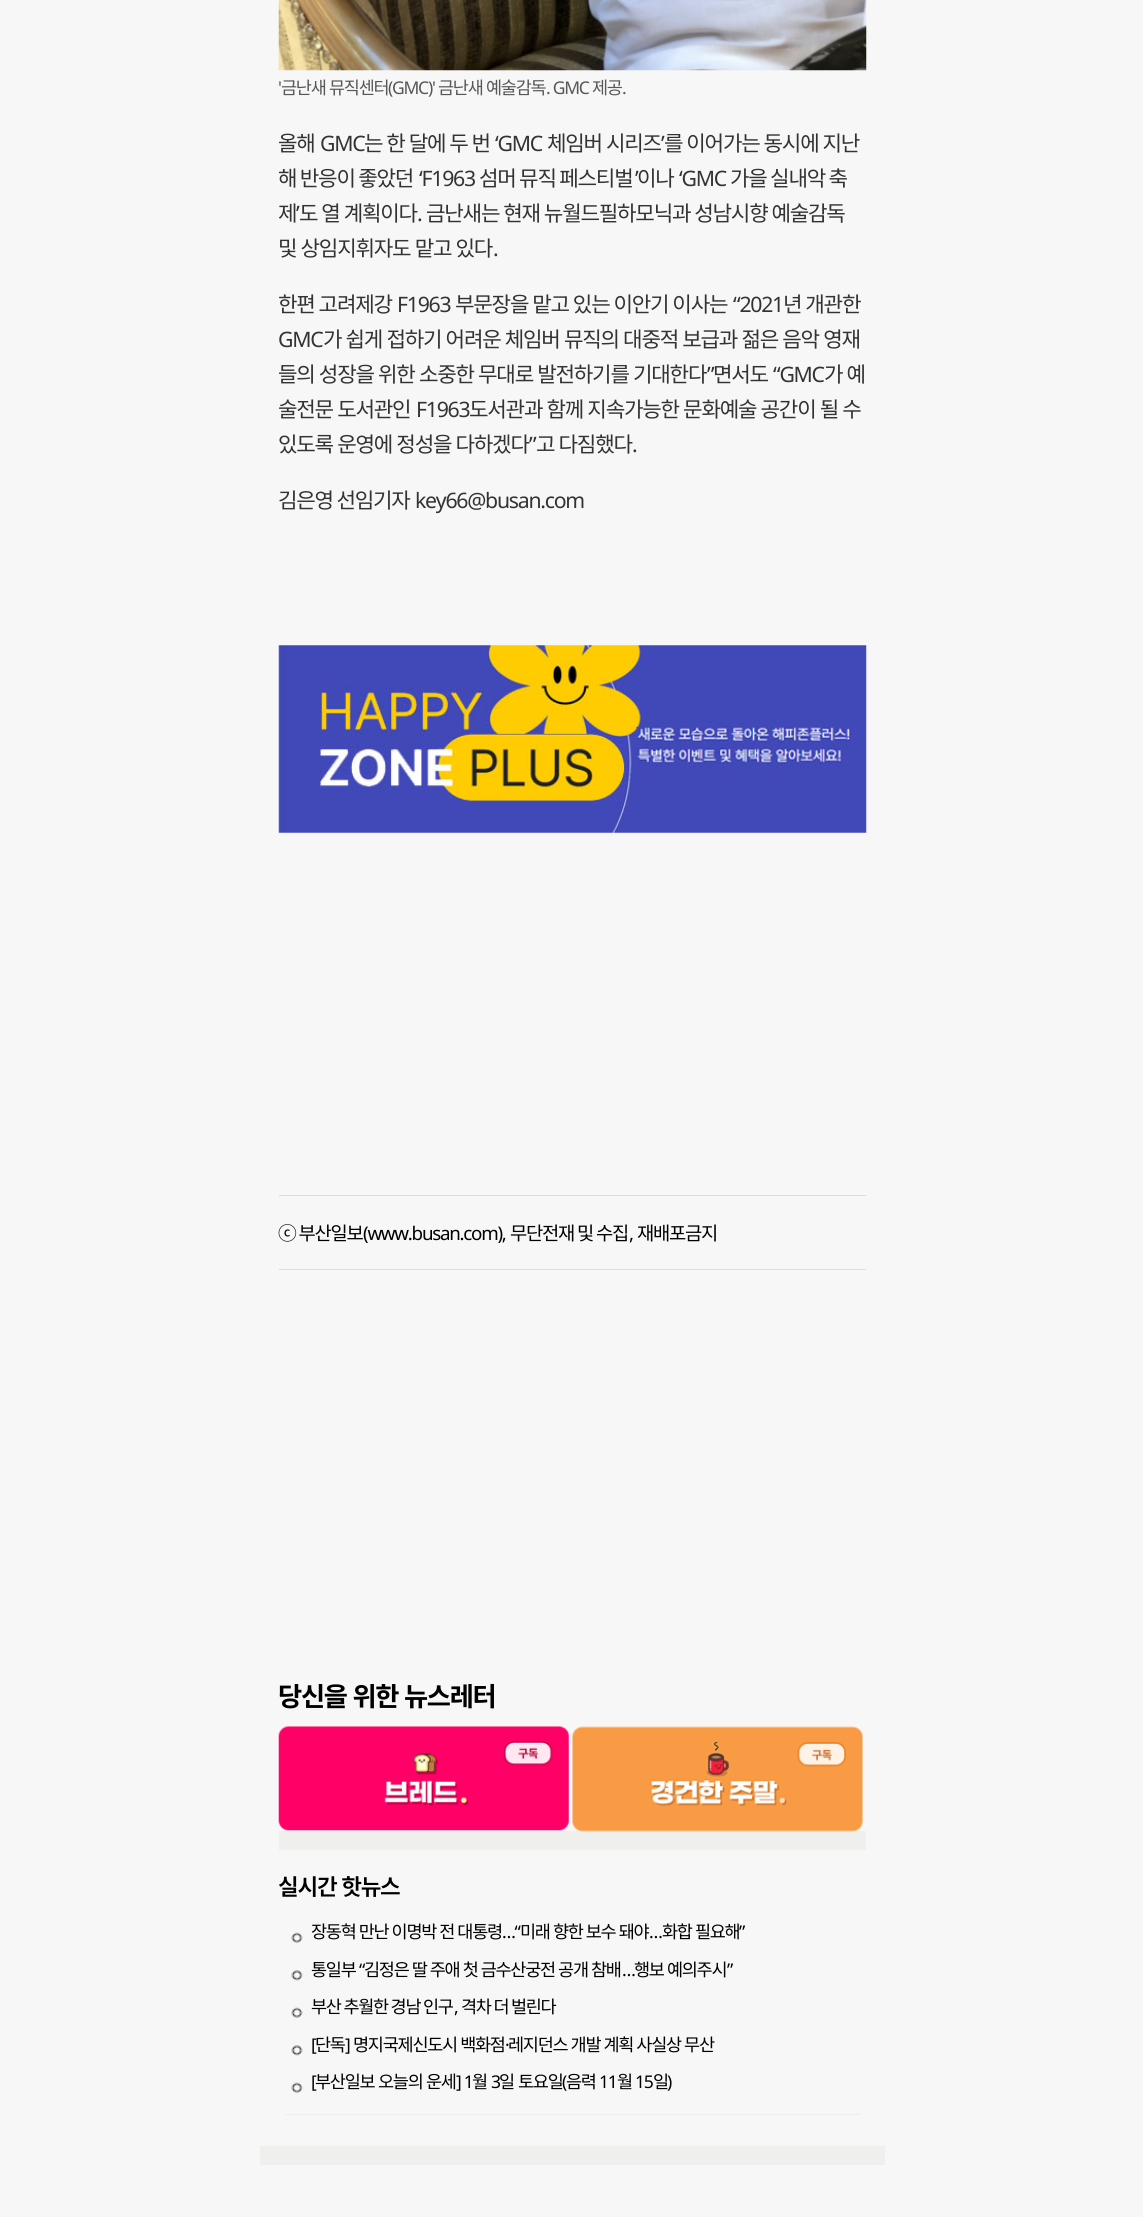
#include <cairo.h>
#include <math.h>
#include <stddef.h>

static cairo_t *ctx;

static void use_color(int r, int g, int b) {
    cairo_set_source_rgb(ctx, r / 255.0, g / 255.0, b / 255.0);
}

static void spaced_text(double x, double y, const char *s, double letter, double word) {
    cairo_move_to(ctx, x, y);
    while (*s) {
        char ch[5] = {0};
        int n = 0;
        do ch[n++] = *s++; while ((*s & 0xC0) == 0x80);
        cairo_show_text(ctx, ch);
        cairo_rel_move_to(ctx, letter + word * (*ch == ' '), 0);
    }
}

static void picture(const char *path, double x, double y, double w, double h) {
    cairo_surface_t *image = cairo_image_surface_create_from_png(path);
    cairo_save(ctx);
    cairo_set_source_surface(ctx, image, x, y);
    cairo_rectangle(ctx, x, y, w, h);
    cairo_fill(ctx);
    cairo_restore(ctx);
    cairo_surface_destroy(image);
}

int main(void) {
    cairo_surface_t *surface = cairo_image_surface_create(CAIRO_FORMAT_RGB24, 1143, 2217);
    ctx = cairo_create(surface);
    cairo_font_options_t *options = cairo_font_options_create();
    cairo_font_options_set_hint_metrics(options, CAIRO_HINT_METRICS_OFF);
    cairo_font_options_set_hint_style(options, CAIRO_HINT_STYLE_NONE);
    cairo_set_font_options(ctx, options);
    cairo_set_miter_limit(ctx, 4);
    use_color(247, 247, 247);
    cairo_paint(ctx);
    picture("img1.png", 278, 0, 589, 71);
    cairo_select_font_face(ctx, "Noto Sans", CAIRO_FONT_SLANT_NORMAL, CAIRO_FONT_WEIGHT_NORMAL);
    cairo_set_font_size(ctx, 17.5);
    use_color(87, 87, 87);
    spaced_text(278, 94, "'", -1.25, 0);
    cairo_select_font_face(ctx, "Noto Sans KR", CAIRO_FONT_SLANT_NORMAL, CAIRO_FONT_WEIGHT_NORMAL);
    spaced_text(281, 94, "금난새", -1.25, 0);
    spaced_text(329, 94, "뮤직센터", -1.25, 0);
    cairo_select_font_face(ctx, "Noto Sans", CAIRO_FONT_SLANT_NORMAL, CAIRO_FONT_WEIGHT_NORMAL);
    spaced_text(388, 94, "(GMC)'", -1.25, 0);
    cairo_select_font_face(ctx, "Noto Sans KR", CAIRO_FONT_SLANT_NORMAL, CAIRO_FONT_WEIGHT_NORMAL);
    spaced_text(438, 94, "금난새", -1.25, 0);
    spaced_text(486, 94, "예술감독", -1.25, 0);
    cairo_select_font_face(ctx, "Noto Sans", CAIRO_FONT_SLANT_NORMAL, CAIRO_FONT_WEIGHT_NORMAL);
    spaced_text(546, 94, ". GMC", -1.25, 0);
    cairo_select_font_face(ctx, "Noto Sans KR", CAIRO_FONT_SLANT_NORMAL, CAIRO_FONT_WEIGHT_NORMAL);
    spaced_text(592, 94, "제공", -1.25, 0);
    cairo_select_font_face(ctx, "Noto Sans", CAIRO_FONT_SLANT_NORMAL, CAIRO_FONT_WEIGHT_NORMAL);
    spaced_text(622, 94, ".", -1.25, 0);
    cairo_select_font_face(ctx, "Noto Sans KR", CAIRO_FONT_SLANT_NORMAL, CAIRO_FONT_WEIGHT_NORMAL);
    cairo_set_font_size(ctx, 21.25);
    use_color(51, 51, 51);
    spaced_text(278, 151, "올해", -1.25, 0);
    cairo_select_font_face(ctx, "Noto Sans", CAIRO_FONT_SLANT_NORMAL, CAIRO_FONT_WEIGHT_NORMAL);
    spaced_text(320, 151, "GMC", -1.25, 0);
    cairo_select_font_face(ctx, "Noto Sans KR", CAIRO_FONT_SLANT_NORMAL, CAIRO_FONT_WEIGHT_NORMAL);
    spaced_text(364, 151, "는 한 달에 두 번", -1.25, 0.5);
    cairo_select_font_face(ctx, "Noto Sans", CAIRO_FONT_SLANT_NORMAL, CAIRO_FONT_WEIGHT_NORMAL);
    spaced_text(495, 151, "‘GMC", -1.25, 0);
    cairo_select_font_face(ctx, "Noto Sans KR", CAIRO_FONT_SLANT_NORMAL, CAIRO_FONT_WEIGHT_NORMAL);
    spaced_text(547, 151, "체임버 시리즈", -1.25, 0.5);
    cairo_select_font_face(ctx, "Noto Sans", CAIRO_FONT_SLANT_NORMAL, CAIRO_FONT_WEIGHT_NORMAL);
    spaced_text(661, 151, "’", -1.25, 0);
    cairo_select_font_face(ctx, "Noto Sans KR", CAIRO_FONT_SLANT_NORMAL, CAIRO_FONT_WEIGHT_NORMAL);
    spaced_text(664, 151, "를 이어가는 동시에 지난", -1.25, 0.5);
    spaced_text(278, 186, "해 반응이 좋았던", -1.25, 0);
    cairo_select_font_face(ctx, "Noto Sans", CAIRO_FONT_SLANT_NORMAL, CAIRO_FONT_WEIGHT_NORMAL);
    spaced_text(419, 186, "‘F1963", -1.25, 0);
    cairo_select_font_face(ctx, "Noto Sans KR", CAIRO_FONT_SLANT_NORMAL, CAIRO_FONT_WEIGHT_NORMAL);
    spaced_text(479, 186, "섬머 뮤직 페스티벌", -1.25, 0);
    cairo_select_font_face(ctx, "Noto Sans", CAIRO_FONT_SLANT_NORMAL, CAIRO_FONT_WEIGHT_NORMAL);
    spaced_text(635, 186, "’", -1.25, 0);
    cairo_select_font_face(ctx, "Noto Sans KR", CAIRO_FONT_SLANT_NORMAL, CAIRO_FONT_WEIGHT_NORMAL);
    spaced_text(637, 186, "이나", -1.25, 0);
    cairo_select_font_face(ctx, "Noto Sans", CAIRO_FONT_SLANT_NORMAL, CAIRO_FONT_WEIGHT_NORMAL);
    spaced_text(679, 186, "‘GMC", -1.25, 0);
    cairo_select_font_face(ctx, "Noto Sans KR", CAIRO_FONT_SLANT_NORMAL, CAIRO_FONT_WEIGHT_NORMAL);
    spaced_text(730, 186, "가을 실내악 축", -1.25, 0);
    spaced_text(278, 221, "제", -1.25, 0);
    cairo_select_font_face(ctx, "Noto Sans", CAIRO_FONT_SLANT_NORMAL, CAIRO_FONT_WEIGHT_NORMAL);
    spaced_text(296, 221, "’", -1.25, 0);
    cairo_select_font_face(ctx, "Noto Sans KR", CAIRO_FONT_SLANT_NORMAL, CAIRO_FONT_WEIGHT_NORMAL);
    spaced_text(299, 221, "도 열 계획이다", -1.25, 0.5);
    spaced_text(426, 221, "금난새는 현재 뉴월드필하모닉과 성남시향 예술감독", -1.25, 0.5);
    cairo_select_font_face(ctx, "Noto Sans", CAIRO_FONT_SLANT_NORMAL, CAIRO_FONT_WEIGHT_NORMAL);
    spaced_text(417, 221, ".", -1.25, 0);
    cairo_select_font_face(ctx, "Noto Sans KR", CAIRO_FONT_SLANT_NORMAL, CAIRO_FONT_WEIGHT_NORMAL);
    spaced_text(278, 256, "및 상임지휘자도 맡고 있다", -1.25, 0.75);
    cairo_select_font_face(ctx, "Noto Sans", CAIRO_FONT_SLANT_NORMAL, CAIRO_FONT_WEIGHT_NORMAL);
    spaced_text(493, 256, ".", -1.25, 0);
    cairo_select_font_face(ctx, "Noto Sans KR", CAIRO_FONT_SLANT_NORMAL, CAIRO_FONT_WEIGHT_NORMAL);
    spaced_text(278, 312, "한편 고려제강", -1.25, 0.5);
    cairo_select_font_face(ctx, "Noto Sans", CAIRO_FONT_SLANT_NORMAL, CAIRO_FONT_WEIGHT_NORMAL);
    spaced_text(397, 312, "F1963", -1.25, 0);
    cairo_select_font_face(ctx, "Noto Sans KR", CAIRO_FONT_SLANT_NORMAL, CAIRO_FONT_WEIGHT_NORMAL);
    spaced_text(455, 312, "부문장을 맡고 있는 이안기 이사는", -1.25, 0.5);
    cairo_select_font_face(ctx, "Noto Sans", CAIRO_FONT_SLANT_NORMAL, CAIRO_FONT_WEIGHT_NORMAL);
    spaced_text(733, 312, "“2021", -1.25, 0);
    cairo_select_font_face(ctx, "Noto Sans KR", CAIRO_FONT_SLANT_NORMAL, CAIRO_FONT_WEIGHT_NORMAL);
    spaced_text(783, 312, "년 개관한", -1.25, 0.5);
    cairo_select_font_face(ctx, "Noto Sans", CAIRO_FONT_SLANT_NORMAL, CAIRO_FONT_WEIGHT_NORMAL);
    spaced_text(278, 347, "GMC", -1.25, 0);
    cairo_select_font_face(ctx, "Noto Sans KR", CAIRO_FONT_SLANT_NORMAL, CAIRO_FONT_WEIGHT_NORMAL);
    spaced_text(323, 347, "가 쉽게 접하기 어려운 체임버 뮤직의 대중적 보급과 젊은 음악 영재", -1.25, 0.75);
    spaced_text(278, 382, "들의 성장을 위한 소중한 무대로 발전하기를 기대한다", -1.25, 0.75);
    cairo_select_font_face(ctx, "Noto Sans", CAIRO_FONT_SLANT_NORMAL, CAIRO_FONT_WEIGHT_NORMAL);
    spaced_text(707, 382, "”", -1.25, 0);
    cairo_select_font_face(ctx, "Noto Sans KR", CAIRO_FONT_SLANT_NORMAL, CAIRO_FONT_WEIGHT_NORMAL);
    spaced_text(713, 382, "면서도", -1.25, 0);
    cairo_select_font_face(ctx, "Noto Sans", CAIRO_FONT_SLANT_NORMAL, CAIRO_FONT_WEIGHT_NORMAL);
    spaced_text(773, 382, "“GMC", -1.25, 0);
    cairo_select_font_face(ctx, "Noto Sans KR", CAIRO_FONT_SLANT_NORMAL, CAIRO_FONT_WEIGHT_NORMAL);
    spaced_text(824, 382, "가 예", -1.25, 0.75);
    spaced_text(278, 417, "술전문 도서관인", -1.25, 0.75);
    cairo_select_font_face(ctx, "Noto Sans", CAIRO_FONT_SLANT_NORMAL, CAIRO_FONT_WEIGHT_NORMAL);
    spaced_text(416, 417, "F1963", -1.25, 0);
    cairo_select_font_face(ctx, "Noto Sans KR", CAIRO_FONT_SLANT_NORMAL, CAIRO_FONT_WEIGHT_NORMAL);
    spaced_text(469, 417, "도서관과 함께 지속가능한 문화예술 공간이 될 수", -1.25, 0.75);
    spaced_text(278, 452, "있도록 운영에 정성을 다하겠다", -1.25, 0.75);
    cairo_select_font_face(ctx, "Noto Sans", CAIRO_FONT_SLANT_NORMAL, CAIRO_FONT_WEIGHT_NORMAL);
    spaced_text(529, 452, "”", -1.25, 0);
    cairo_select_font_face(ctx, "Noto Sans KR", CAIRO_FONT_SLANT_NORMAL, CAIRO_FONT_WEIGHT_NORMAL);
    spaced_text(536, 452, "고 다짐했다", -1.25, 0.75);
    cairo_select_font_face(ctx, "Noto Sans", CAIRO_FONT_SLANT_NORMAL, CAIRO_FONT_WEIGHT_NORMAL);
    spaced_text(632, 452, ".", -1.25, 0);
    cairo_select_font_face(ctx, "Noto Sans KR", CAIRO_FONT_SLANT_NORMAL, CAIRO_FONT_WEIGHT_NORMAL);
    spaced_text(278, 508, "김은영 선임기자", -1.25, 0);
    cairo_select_font_face(ctx, "Noto Sans", CAIRO_FONT_SLANT_NORMAL, CAIRO_FONT_WEIGHT_NORMAL);
    spaced_text(415, 508, "key66@busan.com", -1.25, 0);
    picture("img2.png", 278, 645, 589, 188);
    use_color(221, 221, 221);
    cairo_rectangle(ctx, 279, 1195, 587, 1);
    cairo_fill(ctx);
    cairo_rectangle(ctx, 279, 1269, 587, 1);
    cairo_fill(ctx);
    cairo_select_font_face(ctx, "Noto Sans KR", CAIRO_FONT_SLANT_NORMAL, CAIRO_FONT_WEIGHT_NORMAL);
    cairo_set_font_size(ctx, 18.75);
    use_color(0, 0, 0);
    spaced_text(278, 1240, "ⓒ 부산일보", -1.25, 0);
    cairo_select_font_face(ctx, "Noto Sans", CAIRO_FONT_SLANT_NORMAL, CAIRO_FONT_WEIGHT_NORMAL);
    spaced_text(363, 1240, "(www.busan.com),", -1.25, 0);
    cairo_select_font_face(ctx, "Noto Sans KR", CAIRO_FONT_SLANT_NORMAL, CAIRO_FONT_WEIGHT_NORMAL);
    spaced_text(510, 1240, "무단전재 및 수집", -1.25, 0);
    cairo_select_font_face(ctx, "Noto Sans", CAIRO_FONT_SLANT_NORMAL, CAIRO_FONT_WEIGHT_NORMAL);
    spaced_text(629, 1240, ",", -1.25, 0);
    cairo_select_font_face(ctx, "Noto Sans KR", CAIRO_FONT_SLANT_NORMAL, CAIRO_FONT_WEIGHT_NORMAL);
    spaced_text(637, 1240, "재배포금지", -1.25, 0);
    cairo_select_font_face(ctx, "Noto Sans KR", CAIRO_FONT_SLANT_NORMAL, CAIRO_FONT_WEIGHT_BOLD);
    cairo_set_font_size(ctx, 26.25);
    spaced_text(278, 1706, "당신을 위한 뉴스레터", -1.25, 1);
    picture("img3.png", 278, 1726, 291, 105);
    use_color(239, 239, 237);
    cairo_rectangle(ctx, 279, 1831, 587, 19);
    cairo_fill(ctx);
    picture("img4.png", 572, 1726, 291, 106);
    cairo_select_font_face(ctx, "Noto Sans KR SemiBold", CAIRO_FONT_SLANT_NORMAL, CAIRO_FONT_WEIGHT_NORMAL);
    cairo_set_font_size(ctx, 22.5);
    use_color(0, 0, 0);
    spaced_text(278, 1895, "실시간 핫뉴스", -1.25, 1);
    picture("img5.png", 291, 1932, 12, 11);
    cairo_select_font_face(ctx, "Noto Sans KR", CAIRO_FONT_SLANT_NORMAL, CAIRO_FONT_WEIGHT_NORMAL);
    cairo_set_font_size(ctx, 17.5);
    spaced_text(311, 1938, "장동혁 만난 이명박 전 대통령", -1.25, 0.5);
    cairo_select_font_face(ctx, "Noto Sans", CAIRO_FONT_SLANT_NORMAL, CAIRO_FONT_WEIGHT_NORMAL);
    spaced_text(502, 1938, "…“", -1.25, 0);
    cairo_select_font_face(ctx, "Noto Sans KR", CAIRO_FONT_SLANT_NORMAL, CAIRO_FONT_WEIGHT_NORMAL);
    spaced_text(520, 1938, "미래 향한 보수 돼야", -1.25, 0.5);
    spaced_text(662, 1938, "화합 필요해", -1.25, 0.5);
    cairo_select_font_face(ctx, "Noto Sans", CAIRO_FONT_SLANT_NORMAL, CAIRO_FONT_WEIGHT_NORMAL);
    spaced_text(739, 1938, "”", -1.25, 0);
    spaced_text(649, 1938, "…", -1.25, 0);
    picture("img6.png", 291, 1970, 12, 11);
    cairo_select_font_face(ctx, "Noto Sans KR", CAIRO_FONT_SLANT_NORMAL, CAIRO_FONT_WEIGHT_NORMAL);
    spaced_text(311, 1976, "통일부", -1.25, 0);
    cairo_select_font_face(ctx, "Noto Sans", CAIRO_FONT_SLANT_NORMAL, CAIRO_FONT_WEIGHT_NORMAL);
    spaced_text(359, 1976, "“", -1.25, 0);
    cairo_select_font_face(ctx, "Noto Sans KR", CAIRO_FONT_SLANT_NORMAL, CAIRO_FONT_WEIGHT_NORMAL);
    spaced_text(364, 1976, "김정은 딸 주애 첫 금수산궁전 공개 참배", -1.25, 0.5);
    spaced_text(634, 1976, "행보 예의주시", -1.25, 0.5);
    cairo_select_font_face(ctx, "Noto Sans", CAIRO_FONT_SLANT_NORMAL, CAIRO_FONT_WEIGHT_NORMAL);
    spaced_text(727, 1976, "”", -1.25, 0);
    spaced_text(622, 1976, "…", -1.25, 0);
    picture("img5.png", 291, 2007, 12, 11);
    cairo_select_font_face(ctx, "Noto Sans KR", CAIRO_FONT_SLANT_NORMAL, CAIRO_FONT_WEIGHT_NORMAL);
    spaced_text(311, 2013, "부산 추월한 경남 인구", -1.25, 0);
    cairo_select_font_face(ctx, "Noto Sans", CAIRO_FONT_SLANT_NORMAL, CAIRO_FONT_WEIGHT_NORMAL);
    spaced_text(454, 2013, ",", -1.25, 0);
    cairo_select_font_face(ctx, "Noto Sans KR", CAIRO_FONT_SLANT_NORMAL, CAIRO_FONT_WEIGHT_NORMAL);
    spaced_text(461, 2013, "격차 더 벌린다", -1.25, 0);
    picture("img7.png", 291, 2045, 12, 11);
    cairo_select_font_face(ctx, "Noto Sans", CAIRO_FONT_SLANT_NORMAL, CAIRO_FONT_WEIGHT_NORMAL);
    spaced_text(311, 2051, "[", -1.25, 0);
    cairo_select_font_face(ctx, "Noto Sans KR", CAIRO_FONT_SLANT_NORMAL, CAIRO_FONT_WEIGHT_NORMAL);
    spaced_text(315, 2051, "단독", -1.25, 0);
    cairo_select_font_face(ctx, "Noto Sans", CAIRO_FONT_SLANT_NORMAL, CAIRO_FONT_WEIGHT_NORMAL);
    spaced_text(345, 2051, "]", -1.25, 0);
    cairo_select_font_face(ctx, "Noto Sans KR", CAIRO_FONT_SLANT_NORMAL, CAIRO_FONT_WEIGHT_NORMAL);
    spaced_text(353, 2051, "명지국제신도시 백화점", -1.25, 0.5);
    cairo_select_font_face(ctx, "Noto Sans", CAIRO_FONT_SLANT_NORMAL, CAIRO_FONT_WEIGHT_NORMAL);
    spaced_text(505, 2051, "·", -1.25, 0);
    cairo_select_font_face(ctx, "Noto Sans KR", CAIRO_FONT_SLANT_NORMAL, CAIRO_FONT_WEIGHT_NORMAL);
    spaced_text(508, 2051, "레지던스 개발 계획 사실상 무산", -1.25, 0.5);
    picture("img5.png", 291, 2082, 12, 11);
    cairo_select_font_face(ctx, "Noto Sans", CAIRO_FONT_SLANT_NORMAL, CAIRO_FONT_WEIGHT_NORMAL);
    spaced_text(311, 2088, "[", -1.25, 0);
    cairo_select_font_face(ctx, "Noto Sans KR", CAIRO_FONT_SLANT_NORMAL, CAIRO_FONT_WEIGHT_NORMAL);
    spaced_text(315, 2088, "부산일보", -1.25, 0);
    spaced_text(378, 2088, "오늘의", -1.25, 0);
    spaced_text(426, 2088, "운세", -1.25, 0);
    cairo_select_font_face(ctx, "Noto Sans", CAIRO_FONT_SLANT_NORMAL, CAIRO_FONT_WEIGHT_NORMAL);
    spaced_text(456, 2088, "] 1", -1.25, 0);
    cairo_select_font_face(ctx, "Noto Sans KR", CAIRO_FONT_SLANT_NORMAL, CAIRO_FONT_WEIGHT_NORMAL);
    spaced_text(472, 2088, "월", -1.25, 0);
    cairo_select_font_face(ctx, "Noto Sans", CAIRO_FONT_SLANT_NORMAL, CAIRO_FONT_WEIGHT_NORMAL);
    spaced_text(491, 2088, "3", -1.25, 0);
    cairo_select_font_face(ctx, "Noto Sans KR", CAIRO_FONT_SLANT_NORMAL, CAIRO_FONT_WEIGHT_NORMAL);
    spaced_text(499, 2088, "일", -1.25, 0);
    spaced_text(518, 2088, "토요일", -1.25, 0);
    cairo_select_font_face(ctx, "Noto Sans", CAIRO_FONT_SLANT_NORMAL, CAIRO_FONT_WEIGHT_NORMAL);
    spaced_text(562, 2088, "(", -1.25, 0);
    cairo_select_font_face(ctx, "Noto Sans KR", CAIRO_FONT_SLANT_NORMAL, CAIRO_FONT_WEIGHT_NORMAL);
    spaced_text(566, 2088, "음력", -1.25, 0);
    cairo_select_font_face(ctx, "Noto Sans", CAIRO_FONT_SLANT_NORMAL, CAIRO_FONT_WEIGHT_NORMAL);
    spaced_text(599, 2088, "11", -1.25, 0);
    cairo_select_font_face(ctx, "Noto Sans KR", CAIRO_FONT_SLANT_NORMAL, CAIRO_FONT_WEIGHT_NORMAL);
    spaced_text(617, 2088, "월", -1.25, 0);
    cairo_select_font_face(ctx, "Noto Sans", CAIRO_FONT_SLANT_NORMAL, CAIRO_FONT_WEIGHT_NORMAL);
    spaced_text(635, 2088, "15", -1.25, 0);
    cairo_select_font_face(ctx, "Noto Sans KR", CAIRO_FONT_SLANT_NORMAL, CAIRO_FONT_WEIGHT_NORMAL);
    spaced_text(653, 2088, "일", -1.25, 0);
    cairo_select_font_face(ctx, "Noto Sans", CAIRO_FONT_SLANT_NORMAL, CAIRO_FONT_WEIGHT_NORMAL);
    spaced_text(667, 2088, ")", -1.25, 0);
    use_color(238, 238, 238);
    cairo_rectangle(ctx, 285, 2114, 575, 1);
    cairo_fill(ctx);
    use_color(239, 239, 237);
    cairo_rectangle(ctx, 260, 2146, 625, 19);
    cairo_fill(ctx);
    cairo_surface_write_to_png(surface, "result.png");
    cairo_font_options_destroy(options);
    cairo_destroy(ctx);
    cairo_surface_destroy(surface);
    return 0;
}
